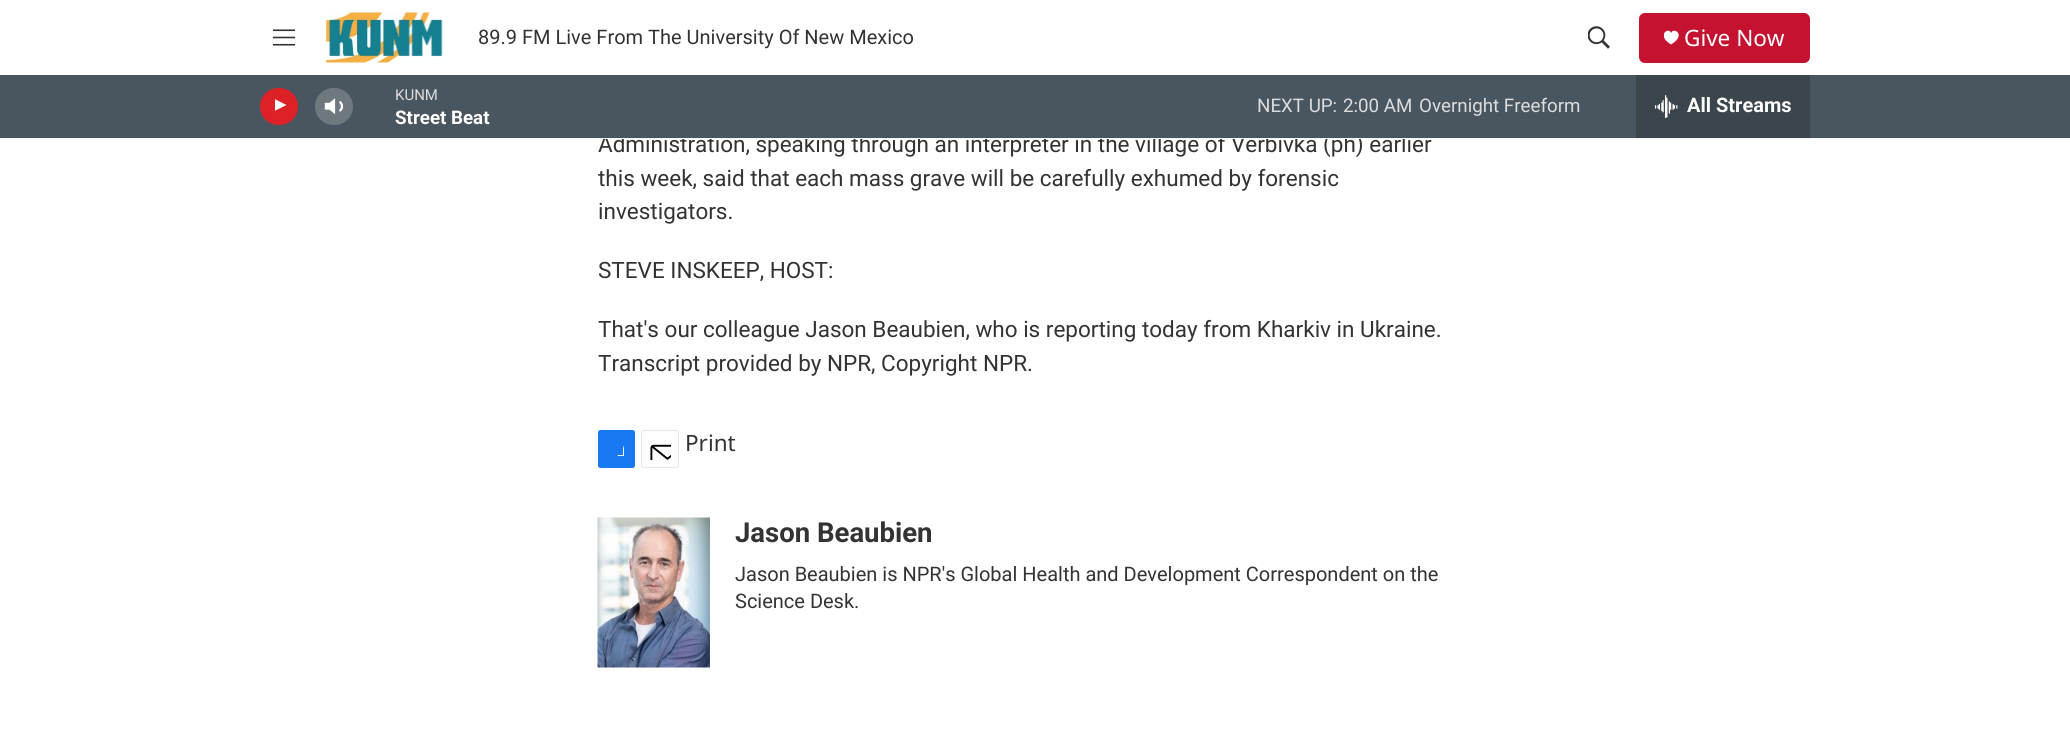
#include <cairo.h>
#include <math.h>
#include <stddef.h>

static cairo_t *ctx;

static void use_color(int r, int g, int b) {
    cairo_set_source_rgb(ctx, r / 255.0, g / 255.0, b / 255.0);
}

static void round_rect(double x, double y, double w, double h, double r) {
    cairo_new_sub_path(ctx);
    cairo_arc(ctx, x + w - r, y + h - r, r, 0, M_PI / 2);
    cairo_arc(ctx, x + r, y + h - r, r, M_PI / 2, M_PI);
    cairo_arc(ctx, x + r, y + r, r, M_PI, 1.5 * M_PI);
    cairo_arc(ctx, x + w - r, y + r, r, 1.5 * M_PI, 2 * M_PI);
    cairo_close_path(ctx);
}

static void picture(const char *path, double x, double y, double w, double h) {
    cairo_surface_t *image = cairo_image_surface_create_from_png(path);
    cairo_save(ctx);
    cairo_set_source_surface(ctx, image, x, y);
    cairo_rectangle(ctx, x, y, w, h);
    cairo_fill(ctx);
    cairo_restore(ctx);
    cairo_surface_destroy(image);
}

int main(void) {
    cairo_surface_t *surface = cairo_image_surface_create(CAIRO_FORMAT_RGB24, 2070, 734);
    ctx = cairo_create(surface);
    cairo_font_options_t *options = cairo_font_options_create();
    cairo_font_options_set_hint_metrics(options, CAIRO_HINT_METRICS_OFF);
    cairo_font_options_set_hint_style(options, CAIRO_HINT_STYLE_NONE);
    cairo_set_font_options(ctx, options);
    cairo_set_miter_limit(ctx, 4);
    use_color(255, 255, 255);
    cairo_paint(ctx);
    cairo_select_font_face(ctx, "Roboto", CAIRO_FONT_SLANT_NORMAL, CAIRO_FONT_WEIGHT_NORMAL);
    cairo_set_font_size(ctx, 22.5);
    use_color(51, 51, 51);
    cairo_move_to(ctx, 598, 152);
    cairo_show_text(ctx, "Administration, speaking through an interpreter in the village of Verbivka (ph) earlier");
    use_color(245, 245, 245);
    cairo_rectangle(ctx, 0, 138, 2070, 1);
    cairo_fill(ctx);
    picture("img1.png", 273, 29, 22, 17);
    picture("img2.png", 326, 12, 117, 51);
    cairo_set_font_size(ctx, 20);
    use_color(51, 51, 51);
    cairo_move_to(ctx, 478, 44);
    cairo_show_text(ctx, "89.9 FM Live From The University Of New Mexico");
    picture("img3.png", 1588, 26, 22, 23);
    use_color(196, 18, 48);
    round_rect(1639, 13, 171, 50, 6);
    cairo_fill(ctx);
    cairo_save(ctx);
    cairo_rectangle(ctx, 1664, 30, 15, 15);
    cairo_clip(ctx);
    use_color(255, 255, 255);
    cairo_new_path(ctx);
    cairo_move_to(ctx, 1671, 33);
    cairo_curve_to(ctx, 1669, 26.5, 1655.5, 35, 1671, 44.5);
    cairo_curve_to(ctx, 1687, 35, 1673.5, 26.5, 1671, 33);
    cairo_close_path(ctx);
    cairo_fill(ctx);
    cairo_restore(ctx);
    cairo_select_font_face(ctx, "Noto Sans", CAIRO_FONT_SLANT_NORMAL, CAIRO_FONT_WEIGHT_NORMAL);
    cairo_set_font_size(ctx, 22.5);
    use_color(255, 255, 255);
    cairo_move_to(ctx, 1684, 46);
    cairo_show_text(ctx, "Give Now");
    use_color(74, 86, 95);
    cairo_rectangle(ctx, 0, 75, 2070, 63);
    cairo_fill(ctx);
    use_color(220, 33, 39);
    round_rect(260, 88, 38, 37, 18.5);
    cairo_fill(ctx);
    cairo_save(ctx);
    cairo_rectangle(ctx, 275, 98, 14, 18);
    cairo_clip(ctx);
    use_color(255, 255, 255);
    cairo_new_path(ctx);
    cairo_move_to(ctx, 274.5, 99);
    cairo_line_to(ctx, 286.5, 105);
    cairo_line_to(ctx, 274.5, 111);
    cairo_close_path(ctx);
    cairo_fill(ctx);
    cairo_restore(ctx);
    picture("img4.png", 324, 98, 20, 17);
    cairo_set_source_rgba(ctx, 1, 1, 1, 0.2);
    round_rect(315, 88, 38, 37, 18.5);
    cairo_fill(ctx);
    cairo_select_font_face(ctx, "Roboto", CAIRO_FONT_SLANT_NORMAL, CAIRO_FONT_WEIGHT_NORMAL);
    cairo_set_font_size(ctx, 15);
    use_color(219, 221, 223);
    cairo_move_to(ctx, 395, 100);
    cairo_show_text(ctx, "KUNM");
    cairo_select_font_face(ctx, "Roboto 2", CAIRO_FONT_SLANT_NORMAL, CAIRO_FONT_WEIGHT_BOLD);
    cairo_set_font_size(ctx, 18.75);
    use_color(255, 255, 255);
    cairo_move_to(ctx, 395, 124);
    cairo_show_text(ctx, "Street Beat");
    cairo_select_font_face(ctx, "Roboto", CAIRO_FONT_SLANT_NORMAL, CAIRO_FONT_WEIGHT_NORMAL);
    use_color(219, 221, 223);
    cairo_move_to(ctx, 1257, 112);
    cairo_show_text(ctx, "NEXT UP:");
    cairo_move_to(ctx, 1343, 112);
    cairo_show_text(ctx, "2:00 AM");
    cairo_move_to(ctx, 1419, 112);
    cairo_show_text(ctx, "Overnight Freeform");
    use_color(59, 69, 76);
    cairo_rectangle(ctx, 1636, 75, 174, 63);
    cairo_fill(ctx);
    picture("img5.png", 1655, 95, 23, 23);
    cairo_select_font_face(ctx, "Roboto 2", CAIRO_FONT_SLANT_NORMAL, CAIRO_FONT_WEIGHT_BOLD);
    cairo_set_font_size(ctx, 20);
    use_color(255, 255, 255);
    cairo_move_to(ctx, 1687, 112);
    cairo_show_text(ctx, "All Streams");
    cairo_select_font_face(ctx, "Roboto", CAIRO_FONT_SLANT_NORMAL, CAIRO_FONT_WEIGHT_NORMAL);
    cairo_set_font_size(ctx, 22.5);
    use_color(51, 51, 51);
    cairo_move_to(ctx, 598, 186);
    cairo_show_text(ctx, "this week, said that each mass grave will be carefully exhumed by forensic");
    cairo_move_to(ctx, 598, 219);
    cairo_show_text(ctx, "investigators.");
    cairo_move_to(ctx, 598, 278);
    cairo_show_text(ctx, "STEVE INSKEEP, HOST:");
    cairo_move_to(ctx, 598, 337);
    cairo_show_text(ctx, "That's our colleague Jason Beaubien, who is reporting today from Kharkiv in Ukraine.");
    cairo_move_to(ctx, 598, 371);
    cairo_show_text(ctx, "Transcript provided by NPR, Copyright NPR.");
    use_color(23, 120, 242);
    round_rect(598, 430, 37, 38, 2.5);
    cairo_fill(ctx);
    picture("img6.png", 617, 445, 7, 11);
    round_rect(641.5, 430.5, 37, 37, 2);
    use_color(230, 230, 230);
    cairo_set_line_width(ctx, 1);
    cairo_stroke(ctx);
    picture("img7.png", 650, 444, 21, 16);
    cairo_select_font_face(ctx, "Noto Sans", CAIRO_FONT_SLANT_NORMAL, CAIRO_FONT_WEIGHT_NORMAL);
    use_color(51, 51, 51);
    cairo_move_to(ctx, 685, 451);
    cairo_show_text(ctx, "Print");
    picture("img8.png", 597, 517, 113, 151);
    cairo_select_font_face(ctx, "Roboto", CAIRO_FONT_SLANT_NORMAL, CAIRO_FONT_WEIGHT_BOLD);
    cairo_set_font_size(ctx, 27.5);
    cairo_move_to(ctx, 735, 542);
    cairo_show_text(ctx, "Jason Beaubien");
    cairo_select_font_face(ctx, "Roboto", CAIRO_FONT_SLANT_NORMAL, CAIRO_FONT_WEIGHT_NORMAL);
    cairo_set_font_size(ctx, 20);
    cairo_move_to(ctx, 735, 581);
    cairo_show_text(ctx, "Jason Beaubien is NPR's Global Health and Development Correspondent on the");
    cairo_move_to(ctx, 735, 608);
    cairo_show_text(ctx, "Science Desk.");
    cairo_surface_write_to_png(surface, "result.png");
    cairo_font_options_destroy(options);
    cairo_destroy(ctx);
    cairo_surface_destroy(surface);
    return 0;
}
